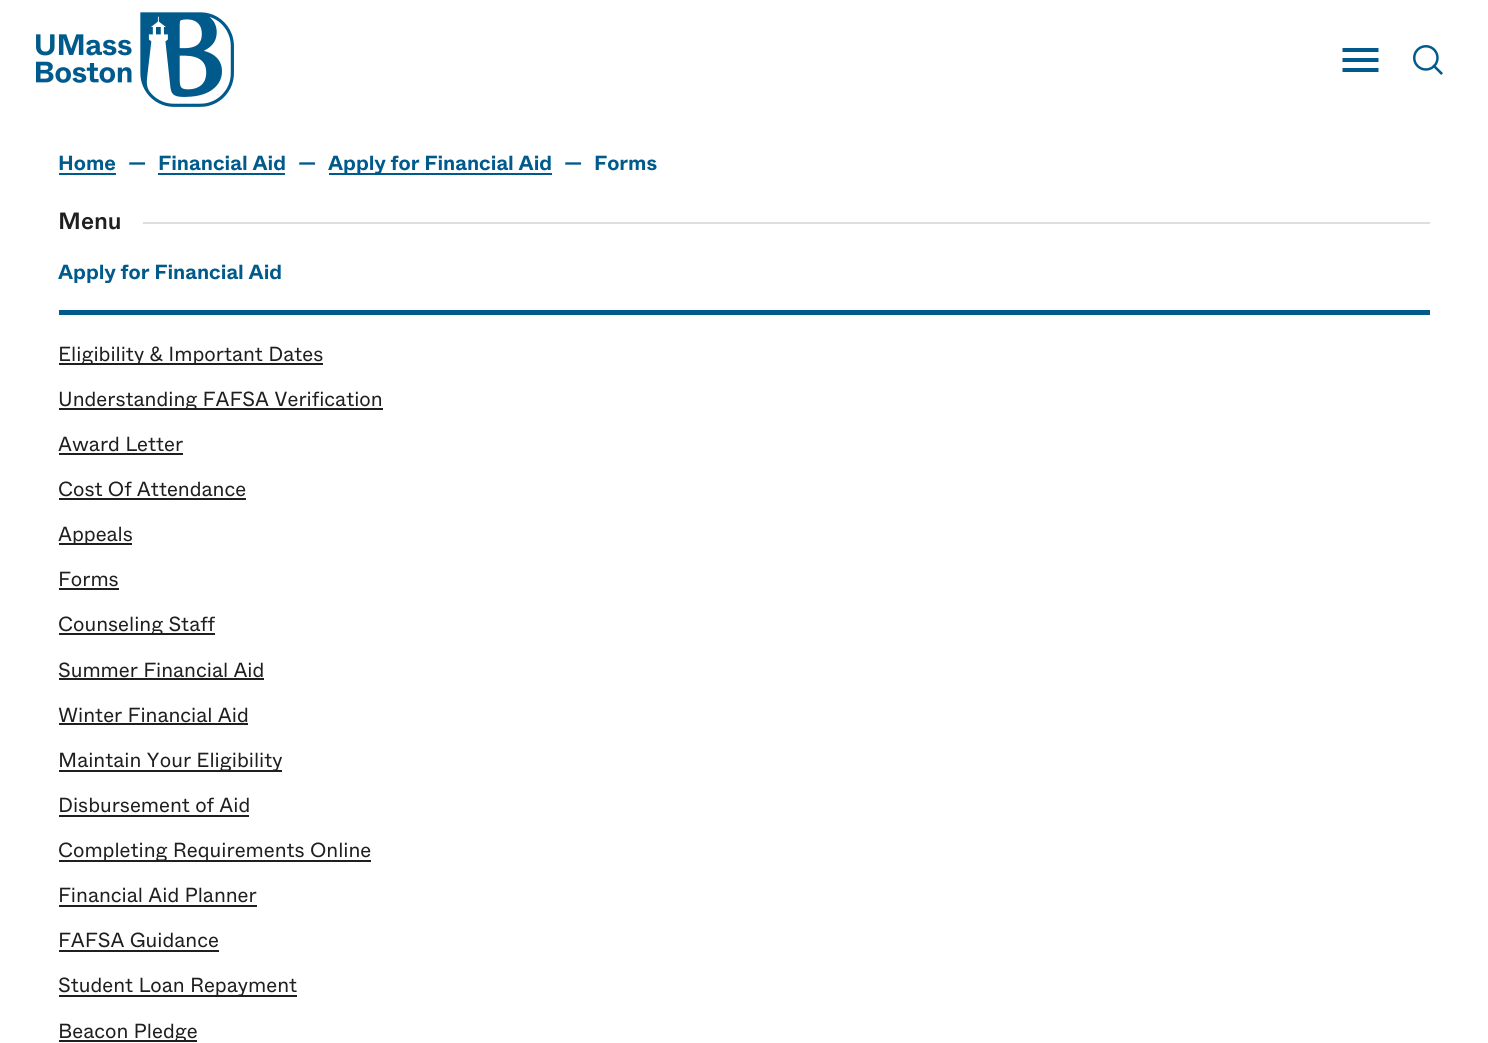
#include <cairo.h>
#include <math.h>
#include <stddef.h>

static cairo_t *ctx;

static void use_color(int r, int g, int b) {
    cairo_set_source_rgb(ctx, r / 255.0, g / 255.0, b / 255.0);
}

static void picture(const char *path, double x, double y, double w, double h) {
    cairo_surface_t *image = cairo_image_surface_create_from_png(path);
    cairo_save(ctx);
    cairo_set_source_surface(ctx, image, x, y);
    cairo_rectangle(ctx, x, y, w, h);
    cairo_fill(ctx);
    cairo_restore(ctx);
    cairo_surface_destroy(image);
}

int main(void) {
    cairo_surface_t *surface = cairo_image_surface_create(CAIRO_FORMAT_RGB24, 1488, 1043);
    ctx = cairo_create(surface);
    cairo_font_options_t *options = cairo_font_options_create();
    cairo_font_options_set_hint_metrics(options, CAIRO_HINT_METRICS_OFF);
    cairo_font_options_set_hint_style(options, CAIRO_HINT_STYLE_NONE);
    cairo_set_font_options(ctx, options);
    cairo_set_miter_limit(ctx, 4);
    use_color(255, 255, 255);
    cairo_paint(ctx);
    picture("img1.png", 36, 12, 198, 95);
    use_color(0, 90, 139);
    cairo_new_path(ctx);
    cairo_move_to(ctx, 1342.5, 72);
    cairo_line_to(ctx, 1342.5, 68);
    cairo_line_to(ctx, 1378.5, 68);
    cairo_line_to(ctx, 1378.5, 72);
    cairo_close_path(ctx);
    cairo_move_to(ctx, 1342.5, 62);
    cairo_line_to(ctx, 1342.5, 58);
    cairo_line_to(ctx, 1378.5, 58);
    cairo_line_to(ctx, 1378.5, 62);
    cairo_close_path(ctx);
    cairo_move_to(ctx, 1342.5, 52);
    cairo_line_to(ctx, 1342.5, 48);
    cairo_line_to(ctx, 1378.5, 48);
    cairo_line_to(ctx, 1378.5, 52);
    cairo_close_path(ctx);
    cairo_fill(ctx);
    picture("img2.png", 1413, 45, 30, 30);
    cairo_select_font_face(ctx, "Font", CAIRO_FONT_SLANT_NORMAL, CAIRO_FONT_WEIGHT_BOLD);
    cairo_set_font_size(ctx, 20.4);
    cairo_move_to(ctx, 58, 170);
    cairo_show_text(ctx, "Home");
    cairo_rectangle(ctx, 59, 173, 57, 2);
    cairo_fill(ctx);
    cairo_move_to(ctx, 128, 170);
    cairo_show_text(ctx, "—");
    cairo_move_to(ctx, 158, 170);
    cairo_show_text(ctx, "Financial Aid");
    cairo_rectangle(ctx, 158, 173, 127, 2);
    cairo_fill(ctx);
    cairo_move_to(ctx, 298, 170);
    cairo_show_text(ctx, "—");
    cairo_rectangle(ctx, 329, 173, 223, 2);
    cairo_fill(ctx);
    cairo_move_to(ctx, 328, 170);
    cairo_show_text(ctx, "Apply for Financial Aid");
    cairo_move_to(ctx, 564, 170);
    cairo_show_text(ctx, "—");
    cairo_move_to(ctx, 594, 170);
    cairo_show_text(ctx, "Forms");
    cairo_select_font_face(ctx, "Font Medium", CAIRO_FONT_SLANT_NORMAL, CAIRO_FONT_WEIGHT_NORMAL);
    cairo_set_font_size(ctx, 23.5);
    use_color(32, 31, 31);
    cairo_move_to(ctx, 58, 229);
    cairo_show_text(ctx, "Menu");
    use_color(222, 222, 222);
    cairo_rectangle(ctx, 143, 222, 1287, 2);
    cairo_fill(ctx);
    use_color(0, 90, 139);
    cairo_new_path(ctx);
    cairo_move_to(ctx, 59, 310);
    cairo_line_to(ctx, 59, 315);
    cairo_line_to(ctx, 1430, 315);
    cairo_line_to(ctx, 1430, 242);
    cairo_line_to(ctx, 1430, 310);
    cairo_close_path(ctx);
    cairo_fill(ctx);
    cairo_select_font_face(ctx, "Font", CAIRO_FONT_SLANT_NORMAL, CAIRO_FONT_WEIGHT_BOLD);
    cairo_set_font_size(ctx, 20.4);
    cairo_move_to(ctx, 58, 279);
    cairo_show_text(ctx, "Apply for Financial Aid");
    use_color(32, 31, 31);
    cairo_rectangle(ctx, 59, 363, 264, 2);
    cairo_fill(ctx);
    cairo_select_font_face(ctx, "Font Light", CAIRO_FONT_SLANT_NORMAL, CAIRO_FONT_WEIGHT_NORMAL);
    cairo_move_to(ctx, 58, 361);
    cairo_show_text(ctx, "Eligibility & Important Dates");
    cairo_rectangle(ctx, 59, 408, 324, 2);
    cairo_fill(ctx);
    cairo_move_to(ctx, 58, 406);
    cairo_show_text(ctx, "Understanding FAFSA Verification");
    cairo_move_to(ctx, 58, 451);
    cairo_show_text(ctx, "Award Letter");
    cairo_rectangle(ctx, 59, 453, 124, 2);
    cairo_fill(ctx);
    cairo_move_to(ctx, 58, 496);
    cairo_show_text(ctx, "Cost Of Attendance");
    cairo_rectangle(ctx, 59, 498, 187, 2);
    cairo_fill(ctx);
    cairo_rectangle(ctx, 59, 543, 73, 2);
    cairo_fill(ctx);
    cairo_move_to(ctx, 58, 541);
    cairo_show_text(ctx, "Appeals");
    cairo_move_to(ctx, 58, 586);
    cairo_show_text(ctx, "Forms");
    cairo_rectangle(ctx, 59, 588, 60, 2);
    cairo_fill(ctx);
    cairo_rectangle(ctx, 59, 633, 156, 2);
    cairo_fill(ctx);
    cairo_move_to(ctx, 58, 631);
    cairo_show_text(ctx, "Counseling Staff");
    cairo_move_to(ctx, 58, 677);
    cairo_show_text(ctx, "Summer Financial Aid");
    cairo_rectangle(ctx, 59, 678, 205, 2);
    cairo_fill(ctx);
    cairo_move_to(ctx, 58, 722);
    cairo_show_text(ctx, "Winter Financial Aid");
    cairo_rectangle(ctx, 59, 723, 189, 2);
    cairo_fill(ctx);
    cairo_rectangle(ctx, 59, 770, 223, 2);
    cairo_fill(ctx);
    cairo_move_to(ctx, 58, 767);
    cairo_show_text(ctx, "Maintain Your Eligibility");
    cairo_move_to(ctx, 58, 812);
    cairo_show_text(ctx, "Disbursement of Aid");
    cairo_rectangle(ctx, 59, 815, 190, 2);
    cairo_fill(ctx);
    cairo_rectangle(ctx, 59, 860, 312, 2);
    cairo_fill(ctx);
    cairo_move_to(ctx, 58, 857);
    cairo_show_text(ctx, "Completing Requirements Online");
    cairo_move_to(ctx, 58, 902);
    cairo_show_text(ctx, "Financial Aid Planner");
    cairo_rectangle(ctx, 59, 905, 198, 2);
    cairo_fill(ctx);
    cairo_move_to(ctx, 58, 947);
    cairo_show_text(ctx, "FAFSA Guidance");
    cairo_rectangle(ctx, 59, 950, 160, 2);
    cairo_fill(ctx);
    cairo_rectangle(ctx, 59, 995, 238, 2);
    cairo_fill(ctx);
    cairo_move_to(ctx, 58, 992);
    cairo_show_text(ctx, "Student Loan Repayment");
    cairo_rectangle(ctx, 59, 1040, 138, 2);
    cairo_fill(ctx);
    cairo_move_to(ctx, 58, 1038);
    cairo_show_text(ctx, "Beacon Pledge");
    cairo_surface_write_to_png(surface, "result.png");
    cairo_font_options_destroy(options);
    cairo_destroy(ctx);
    cairo_surface_destroy(surface);
    return 0;
}
